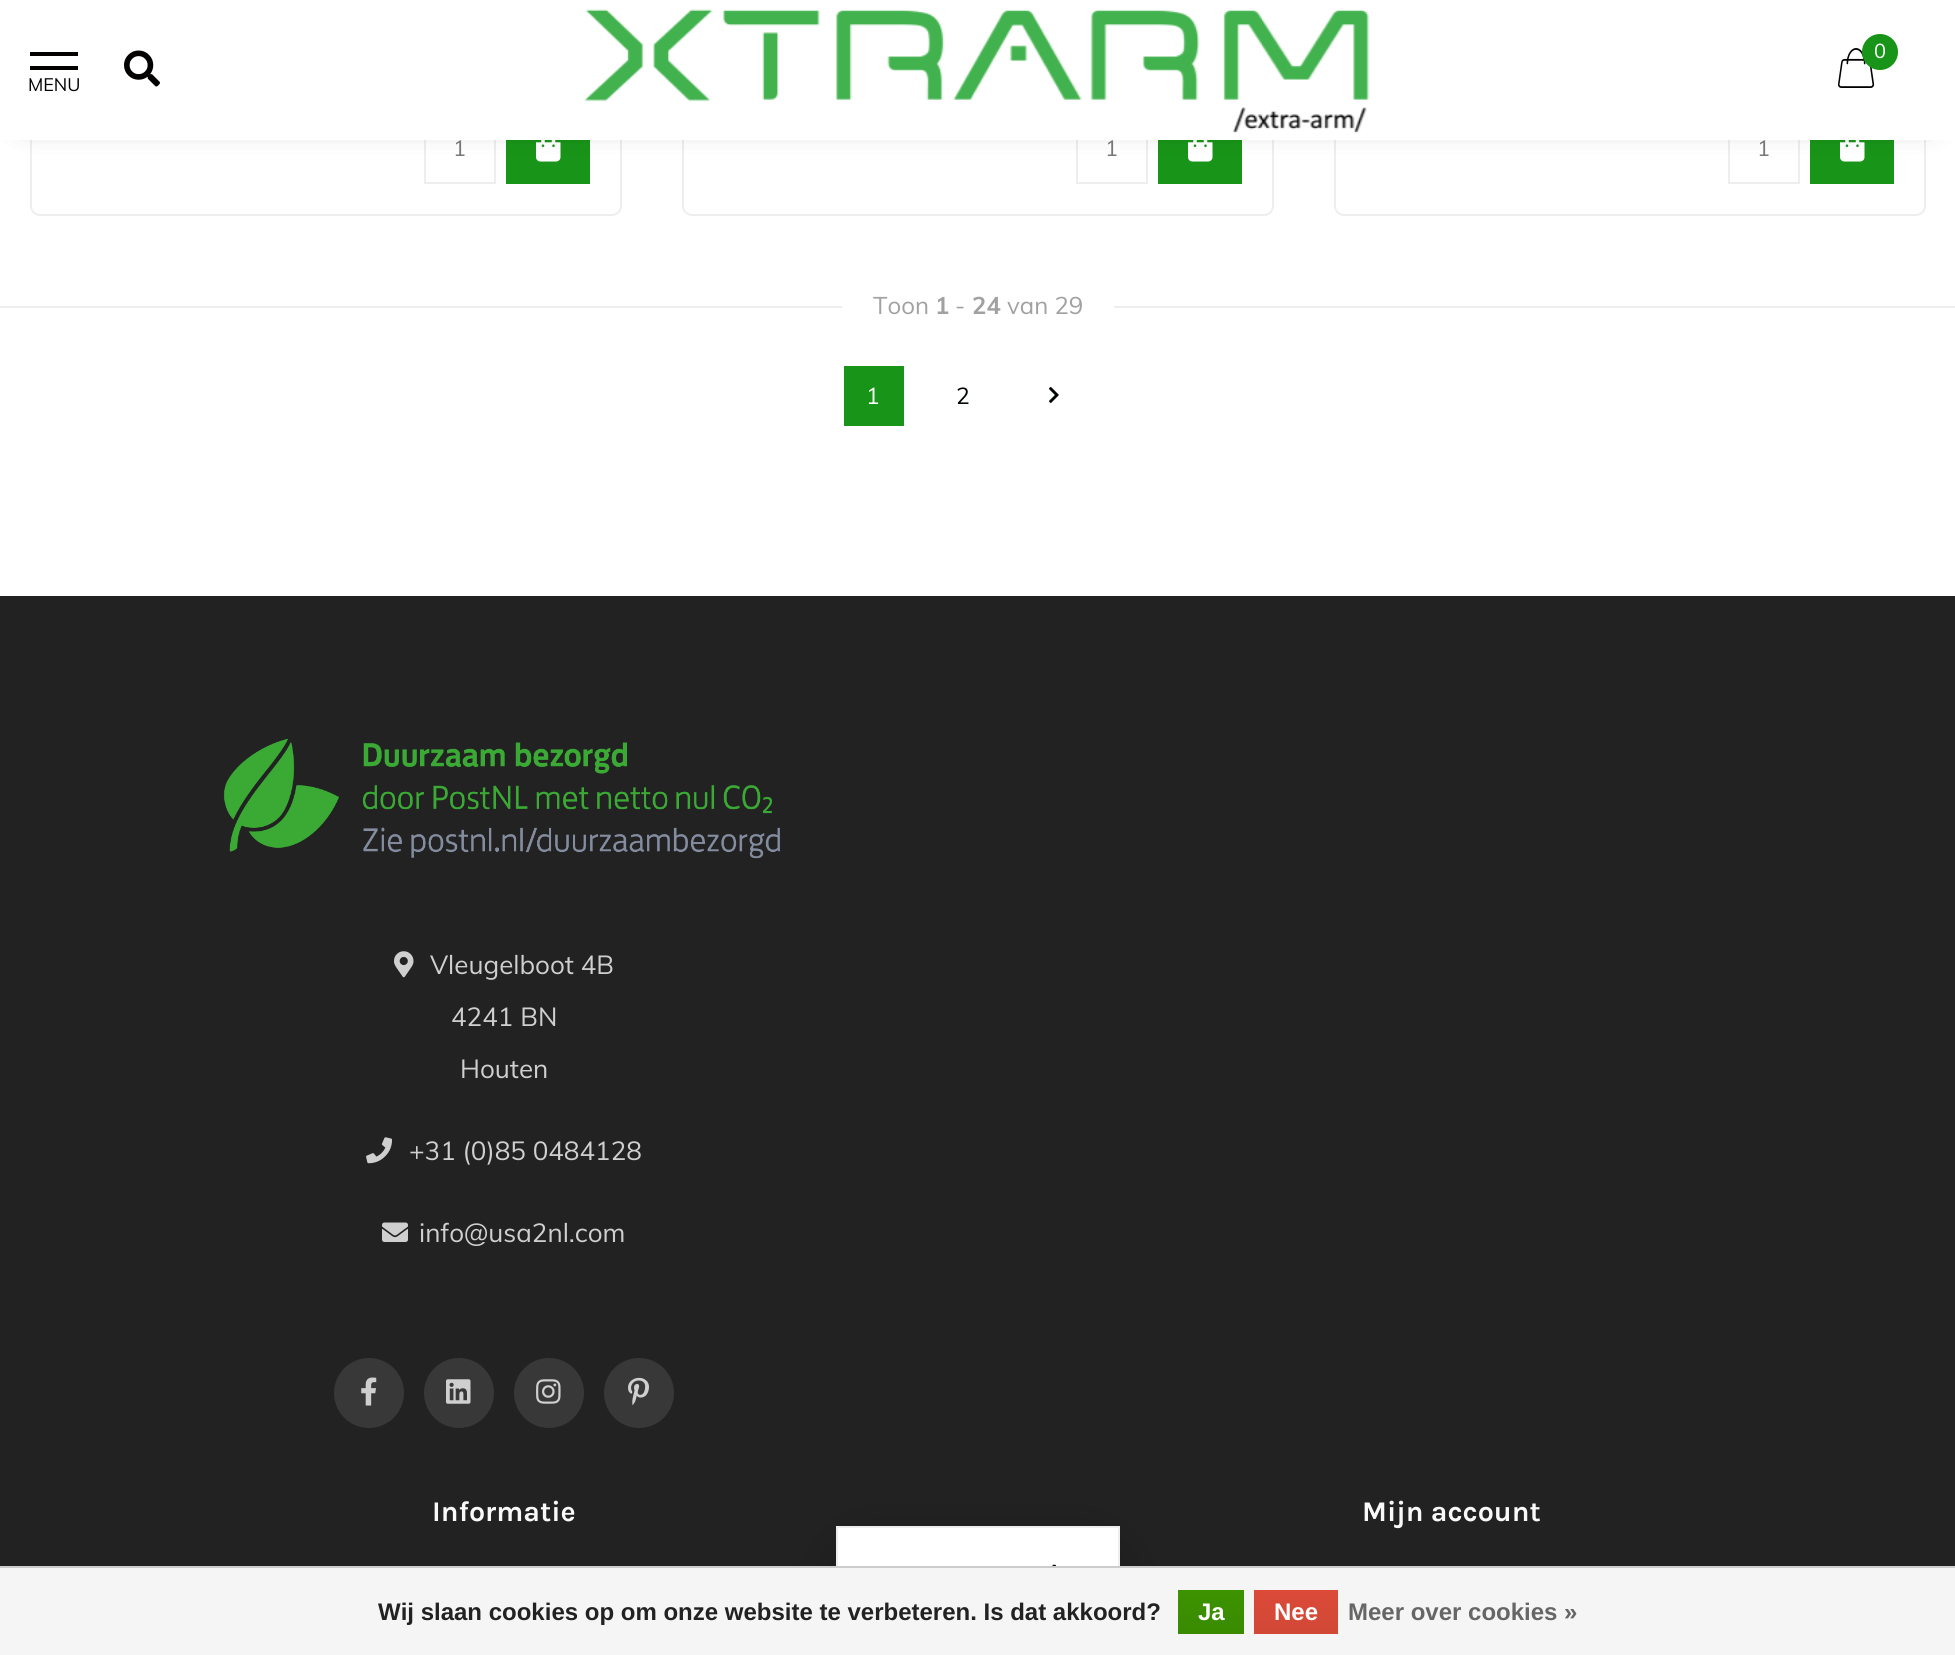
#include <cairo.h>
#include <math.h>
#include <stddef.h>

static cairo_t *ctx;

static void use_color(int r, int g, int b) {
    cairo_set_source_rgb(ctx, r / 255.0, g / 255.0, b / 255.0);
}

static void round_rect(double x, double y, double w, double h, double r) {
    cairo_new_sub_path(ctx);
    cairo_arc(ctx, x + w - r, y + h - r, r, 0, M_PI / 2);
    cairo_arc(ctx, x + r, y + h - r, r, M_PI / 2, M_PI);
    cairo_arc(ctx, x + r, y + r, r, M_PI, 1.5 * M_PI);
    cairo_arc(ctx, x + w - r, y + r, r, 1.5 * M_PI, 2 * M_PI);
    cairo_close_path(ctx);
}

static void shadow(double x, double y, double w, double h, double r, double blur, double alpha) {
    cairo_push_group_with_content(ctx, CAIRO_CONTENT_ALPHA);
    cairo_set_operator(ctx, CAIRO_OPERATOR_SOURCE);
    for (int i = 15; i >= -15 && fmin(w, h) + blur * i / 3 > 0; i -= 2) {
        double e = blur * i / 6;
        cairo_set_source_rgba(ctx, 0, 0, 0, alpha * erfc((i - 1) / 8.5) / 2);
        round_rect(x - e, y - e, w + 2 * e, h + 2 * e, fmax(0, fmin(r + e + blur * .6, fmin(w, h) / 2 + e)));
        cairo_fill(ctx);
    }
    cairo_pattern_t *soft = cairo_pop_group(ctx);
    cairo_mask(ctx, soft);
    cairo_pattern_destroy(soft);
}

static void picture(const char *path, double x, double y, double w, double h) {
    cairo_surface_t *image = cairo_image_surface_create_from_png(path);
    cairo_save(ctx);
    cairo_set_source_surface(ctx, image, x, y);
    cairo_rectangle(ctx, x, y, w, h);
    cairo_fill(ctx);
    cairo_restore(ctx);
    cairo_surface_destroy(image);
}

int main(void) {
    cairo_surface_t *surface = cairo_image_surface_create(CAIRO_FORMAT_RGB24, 1955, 1655);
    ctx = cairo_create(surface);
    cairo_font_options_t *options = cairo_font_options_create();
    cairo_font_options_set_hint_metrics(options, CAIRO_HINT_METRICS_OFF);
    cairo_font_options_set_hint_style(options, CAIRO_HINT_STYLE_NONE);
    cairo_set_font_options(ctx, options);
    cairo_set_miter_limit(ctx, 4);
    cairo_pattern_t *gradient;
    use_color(255, 255, 255);
    cairo_paint(ctx);
    round_rect(31, -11, 590, 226, 9);
    use_color(238, 238, 238);
    cairo_stroke(ctx);
    cairo_rectangle(ctx, 425, 113, 70, 70);
    cairo_stroke(ctx);
    use_color(24, 148, 24);
    cairo_rectangle(ctx, 506, 140, 84, 44);
    cairo_fill(ctx);
    picture("img4.png", 536, 140, 25, 22);
    round_rect(683, -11, 590, 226, 9);
    use_color(238, 238, 238);
    cairo_stroke(ctx);
    cairo_rectangle(ctx, 1077, 113, 70, 70);
    cairo_stroke(ctx);
    use_color(24, 148, 24);
    cairo_rectangle(ctx, 1158, 140, 84, 44);
    cairo_fill(ctx);
    picture("img4.png", 1188, 140, 25, 22);
    round_rect(1335, -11, 590, 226, 9);
    use_color(238, 238, 238);
    cairo_stroke(ctx);
    cairo_rectangle(ctx, 1729, 113, 70, 70);
    cairo_stroke(ctx);
    use_color(24, 148, 24);
    cairo_rectangle(ctx, 1810, 140, 84, 44);
    cairo_fill(ctx);
    picture("img4.png", 1840, 140, 25, 22);
    use_color(0, 0, 0);
    shadow(26, 26, 1904, 88, 0, 16, 0.8);
    use_color(255, 255, 255);
    cairo_rectangle(ctx, 0, 0, 1955, 140);
    cairo_fill(ctx);
    picture("img1.png", 584, 9, 786, 124);
    picture("img2.png", 1838, 48, 37, 40);
    use_color(24, 148, 24);
    cairo_arc(ctx, 1880, 52, 18, 0, 2 * M_PI);
    cairo_fill(ctx);
    cairo_select_font_face(ctx, "Muli", CAIRO_FONT_SLANT_NORMAL, CAIRO_FONT_WEIGHT_NORMAL);
    cairo_set_font_size(ctx, 20);
    use_color(255, 255, 255);
    cairo_move_to(ctx, 1874, 58);
    cairo_show_text(ctx, "0");
    use_color(3, 0, 0);
    cairo_rectangle(ctx, 30, 52, 48, 4);
    cairo_fill(ctx);
    cairo_rectangle(ctx, 30, 66, 48, 4);
    cairo_fill(ctx);
    cairo_set_font_size(ctx, 18);
    cairo_move_to(ctx, 28, 91);
    cairo_show_text(ctx, "MENU");
    picture("img3.png", 124, 50, 36, 37);
    cairo_set_font_size(ctx, 22);
    use_color(119, 119, 119);
    cairo_move_to(ctx, 453, 156);
    cairo_show_text(ctx, "1");
    cairo_move_to(ctx, 1105, 156);
    cairo_show_text(ctx, "1");
    cairo_move_to(ctx, 1757, 156);
    cairo_show_text(ctx, "1");
    use_color(238, 238, 238);
    cairo_rectangle(ctx, 0, 306, 1955, 2);
    cairo_fill(ctx);
    use_color(255, 255, 255);
    cairo_rectangle(ctx, 842, 306, 272, 2);
    cairo_fill(ctx);
    cairo_set_font_size(ctx, 24);
    use_color(161, 161, 161);
    cairo_move_to(ctx, 873, 314);
    cairo_show_text(ctx, "Toon");
    cairo_select_font_face(ctx, "Muli", CAIRO_FONT_SLANT_NORMAL, CAIRO_FONT_WEIGHT_BOLD);
    cairo_move_to(ctx, 935, 314);
    cairo_show_text(ctx, "1");
    cairo_move_to(ctx, 972, 314);
    cairo_show_text(ctx, "24");
    cairo_select_font_face(ctx, "Muli", CAIRO_FONT_SLANT_NORMAL, CAIRO_FONT_WEIGHT_NORMAL);
    cairo_move_to(ctx, 1007, 314);
    cairo_show_text(ctx, "van 29");
    cairo_move_to(ctx, 955, 314);
    cairo_show_text(ctx, "-");
    use_color(24, 148, 24);
    cairo_rectangle(ctx, 844, 366, 60, 60);
    cairo_fill(ctx);
    cairo_set_font_size(ctx, 23);
    use_color(255, 255, 255);
    cairo_move_to(ctx, 866, 404);
    cairo_show_text(ctx, "1");
    use_color(0, 6, 0);
    cairo_move_to(ctx, 956, 404);
    cairo_show_text(ctx, "2");
    picture("img5.png", 1049, 387, 10, 16);
    use_color(34, 34, 34);
    cairo_rectangle(ctx, 0, 596, 1955, 970);
    cairo_fill(ctx);
    picture("img6.png", 223, 738, 557, 121);
    picture("img7.png", 394, 951, 20, 27);
    cairo_set_font_size(ctx, 26);
    use_color(207, 207, 207);
    cairo_move_to(ctx, 430, 974);
    cairo_show_text(ctx, "Vleugelboot 4B");
    cairo_move_to(ctx, 451, 1026);
    cairo_show_text(ctx, "4241 BN");
    cairo_move_to(ctx, 460, 1078);
    cairo_show_text(ctx, "Houten");
    picture("img8.png", 366, 1137, 26, 27);
    cairo_move_to(ctx, 409, 1160);
    cairo_show_text(ctx, "+31 (0)85 0484128");
    picture("img9.png", 382, 1222, 26, 20);
    cairo_move_to(ctx, 419, 1242);
    cairo_show_text(ctx, "info@usa2nl.com");
    use_color(56, 56, 56);
    cairo_new_path(ctx);
    cairo_arc(ctx, 369, 1393, 35, 0, 2 * M_PI);
    cairo_fill(ctx);
    picture("img10.png", 361, 1377, 16, 29);
    cairo_arc(ctx, 459, 1393, 35, 0, 2 * M_PI);
    cairo_fill(ctx);
    picture("img11.png", 446, 1379, 25, 25);
    cairo_arc(ctx, 549, 1393, 35, 0, 2 * M_PI);
    cairo_fill(ctx);
    picture("img12.png", 536, 1379, 25, 25);
    cairo_arc(ctx, 639, 1393, 35, 0, 2 * M_PI);
    cairo_fill(ctx);
    picture("img13.png", 628, 1377, 21, 29);
    cairo_select_font_face(ctx, "Karla", CAIRO_FONT_SLANT_NORMAL, CAIRO_FONT_WEIGHT_BOLD);
    cairo_set_font_size(ctx, 28.5);
    use_color(249, 249, 249);
    cairo_move_to(ctx, 432, 1521);
    cairo_show_text(ctx, "Informatie");
    cairo_move_to(ctx, 1362, 1521);
    cairo_show_text(ctx, "Mijn account");
    use_color(0, 0, 0);
    shadow(880, 1590, 196, 12, 0, 40, 1);
    use_color(255, 255, 255);
    cairo_rectangle(ctx, 838, 1528, 280, 38);
    cairo_fill(ctx);
    cairo_rectangle(ctx, 837, 1527, 282, 98);
    use_color(238, 238, 238);
    cairo_stroke(ctx);
    use_color(245, 245, 245);
    cairo_rectangle(ctx, 0, 1568, 1955, 87);
    cairo_fill(ctx);
    use_color(204, 204, 204);
    cairo_rectangle(ctx, 0, 1566, 1955, 2);
    cairo_fill(ctx);
    cairo_select_font_face(ctx, "Liberation Sans", CAIRO_FONT_SLANT_NORMAL, CAIRO_FONT_WEIGHT_BOLD);
    cairo_set_font_size(ctx, 24);
    use_color(34, 34, 34);
    cairo_move_to(ctx, 378, 1620);
    cairo_show_text(ctx, "Wij slaan cookies op om onze website te verbeteren. Is dat akkoord?");
    gradient = cairo_pattern_create_linear(1211, 1590, 1211, 1634);
    cairo_pattern_add_color_stop_rgba(gradient, 0, 0.235, 0.576, 0, 1);
    cairo_pattern_add_color_stop_rgba(gradient, 1, 0.224, 0.541, 0, 1);
    cairo_set_source(ctx, gradient);
    cairo_pattern_destroy(gradient);
    cairo_rectangle(ctx, 1178, 1590, 66, 44);
    cairo_fill(ctx);
    use_color(255, 255, 255);
    cairo_move_to(ctx, 1198, 1620);
    cairo_show_text(ctx, "Ja");
    gradient = cairo_pattern_create_linear(1296, 1590, 1296, 1634);
    cairo_pattern_add_color_stop_rgba(gradient, 0, 0.863, 0.29, 0.22, 1);
    cairo_pattern_add_color_stop_rgba(gradient, 1, 0.82, 0.282, 0.212, 1);
    cairo_set_source(ctx, gradient);
    cairo_pattern_destroy(gradient);
    cairo_rectangle(ctx, 1254, 1590, 84, 44);
    cairo_fill(ctx);
    use_color(255, 255, 255);
    cairo_move_to(ctx, 1274, 1620);
    cairo_show_text(ctx, "Nee");
    use_color(102, 102, 102);
    cairo_move_to(ctx, 1348, 1620);
    cairo_show_text(ctx, "Meer over cookies »");
    picture("img14.png", 1052, 1564, 4, 2);
    cairo_surface_write_to_png(surface, "result.png");
    cairo_font_options_destroy(options);
    cairo_destroy(ctx);
    cairo_surface_destroy(surface);
    return 0;
}
